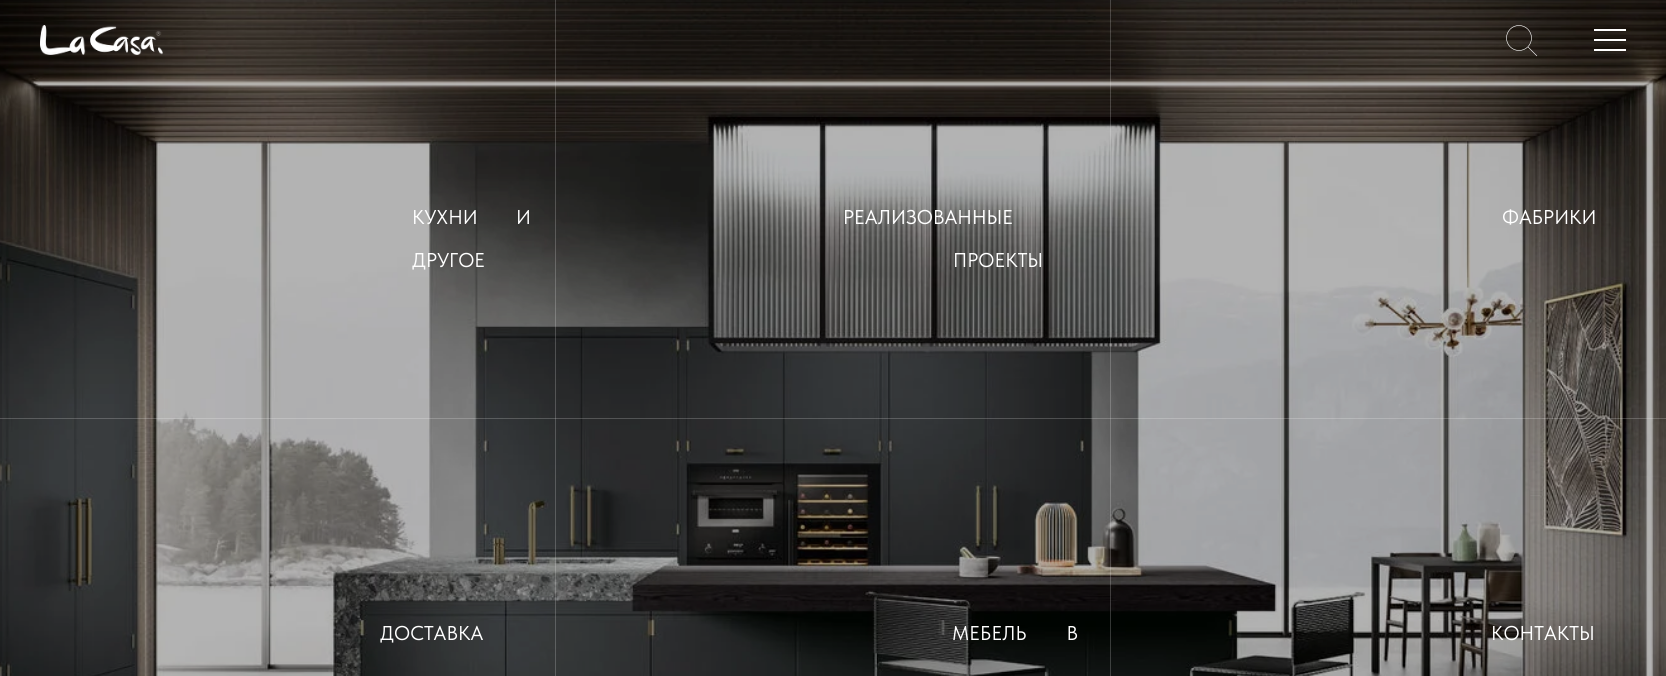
#include <cairo.h>
#include <math.h>
#include <stddef.h>

static cairo_t *ctx;

static void use_color(int r, int g, int b) {
    cairo_set_source_rgb(ctx, r / 255.0, g / 255.0, b / 255.0);
}

static void spaced_text(double x, double y, const char *s, double letter, double word) {
    cairo_move_to(ctx, x, y);
    while (*s) {
        char ch[5] = {0};
        int n = 0;
        do ch[n++] = *s++; while ((*s & 0xC0) == 0x80);
        cairo_show_text(ctx, ch);
        cairo_rel_move_to(ctx, letter + word * (*ch == ' '), 0);
    }
}

static void picture(const char *path, double x, double y, double w, double h) {
    cairo_surface_t *image = cairo_image_surface_create_from_png(path);
    cairo_save(ctx);
    cairo_set_source_surface(ctx, image, x, y);
    cairo_rectangle(ctx, x, y, w, h);
    cairo_fill(ctx);
    cairo_restore(ctx);
    cairo_surface_destroy(image);
}

int main(void) {
    cairo_surface_t *surface = cairo_image_surface_create(CAIRO_FORMAT_RGB24, 1666, 676);
    ctx = cairo_create(surface);
    cairo_font_options_t *options = cairo_font_options_create();
    cairo_font_options_set_hint_metrics(options, CAIRO_HINT_METRICS_OFF);
    cairo_font_options_set_hint_style(options, CAIRO_HINT_STYLE_NONE);
    cairo_set_font_options(ctx, options);
    cairo_set_miter_limit(ctx, 4);
    use_color(255, 255, 255);
    cairo_paint(ctx);
    picture("img2.png", 0, 0, 1666, 676);
    picture("img1.png", 40, 25, 123, 30);
    cairo_arc(ctx, 1519, 38, 12.5, 0, 2 * M_PI);
    use_color(255, 255, 255);
    cairo_set_line_width(ctx, 0.6);
    cairo_stroke(ctx);
    cairo_new_path(ctx);
    cairo_move_to(ctx, 1537, 56);
    cairo_line_to(ctx, 1528, 47);
    cairo_stroke(ctx);
    cairo_rectangle(ctx, 1594, 29, 32, 2);
    cairo_fill(ctx);
    cairo_rectangle(ctx, 1594, 39, 32, 2);
    cairo_fill(ctx);
    cairo_rectangle(ctx, 1594, 49, 32, 2);
    cairo_fill(ctx);
    cairo_select_font_face(ctx, "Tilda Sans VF", CAIRO_FONT_SLANT_NORMAL, CAIRO_FONT_WEIGHT_NORMAL);
    cairo_set_font_size(ctx, 20);
    spaced_text(412, 224, "КУХНИ И", 0, 33);
    cairo_move_to(ctx, 412, 267);
    cairo_show_text(ctx, "ДРУГОЕ");
    cairo_set_source_rgba(ctx, 1, 1, 1, 0.2);
    cairo_rectangle(ctx, 0, 418, 1666, 1);
    cairo_fill(ctx);
    cairo_rectangle(ctx, 555, 0, 1, 676);
    cairo_fill(ctx);
    use_color(255, 255, 255);
    cairo_move_to(ctx, 843, 224);
    cairo_show_text(ctx, "РЕАЛИЗОВАННЫЕ");
    cairo_move_to(ctx, 953, 267);
    cairo_show_text(ctx, "ПРОЕКТЫ");
    cairo_set_source_rgba(ctx, 1, 1, 1, 0.2);
    cairo_rectangle(ctx, 1110, 0, 1, 676);
    cairo_fill(ctx);
    use_color(255, 255, 255);
    cairo_move_to(ctx, 1502, 224);
    cairo_show_text(ctx, "ФАБРИКИ");
    cairo_move_to(ctx, 380, 640);
    cairo_show_text(ctx, "ДОСТАВКА");
    spaced_text(952, 640, "МЕБЕЛЬ В", 0, 35);
    cairo_move_to(ctx, 1491, 640);
    cairo_show_text(ctx, "КОНТАКТЫ");
    cairo_surface_write_to_png(surface, "result.png");
    cairo_font_options_destroy(options);
    cairo_destroy(ctx);
    cairo_surface_destroy(surface);
    return 0;
}
